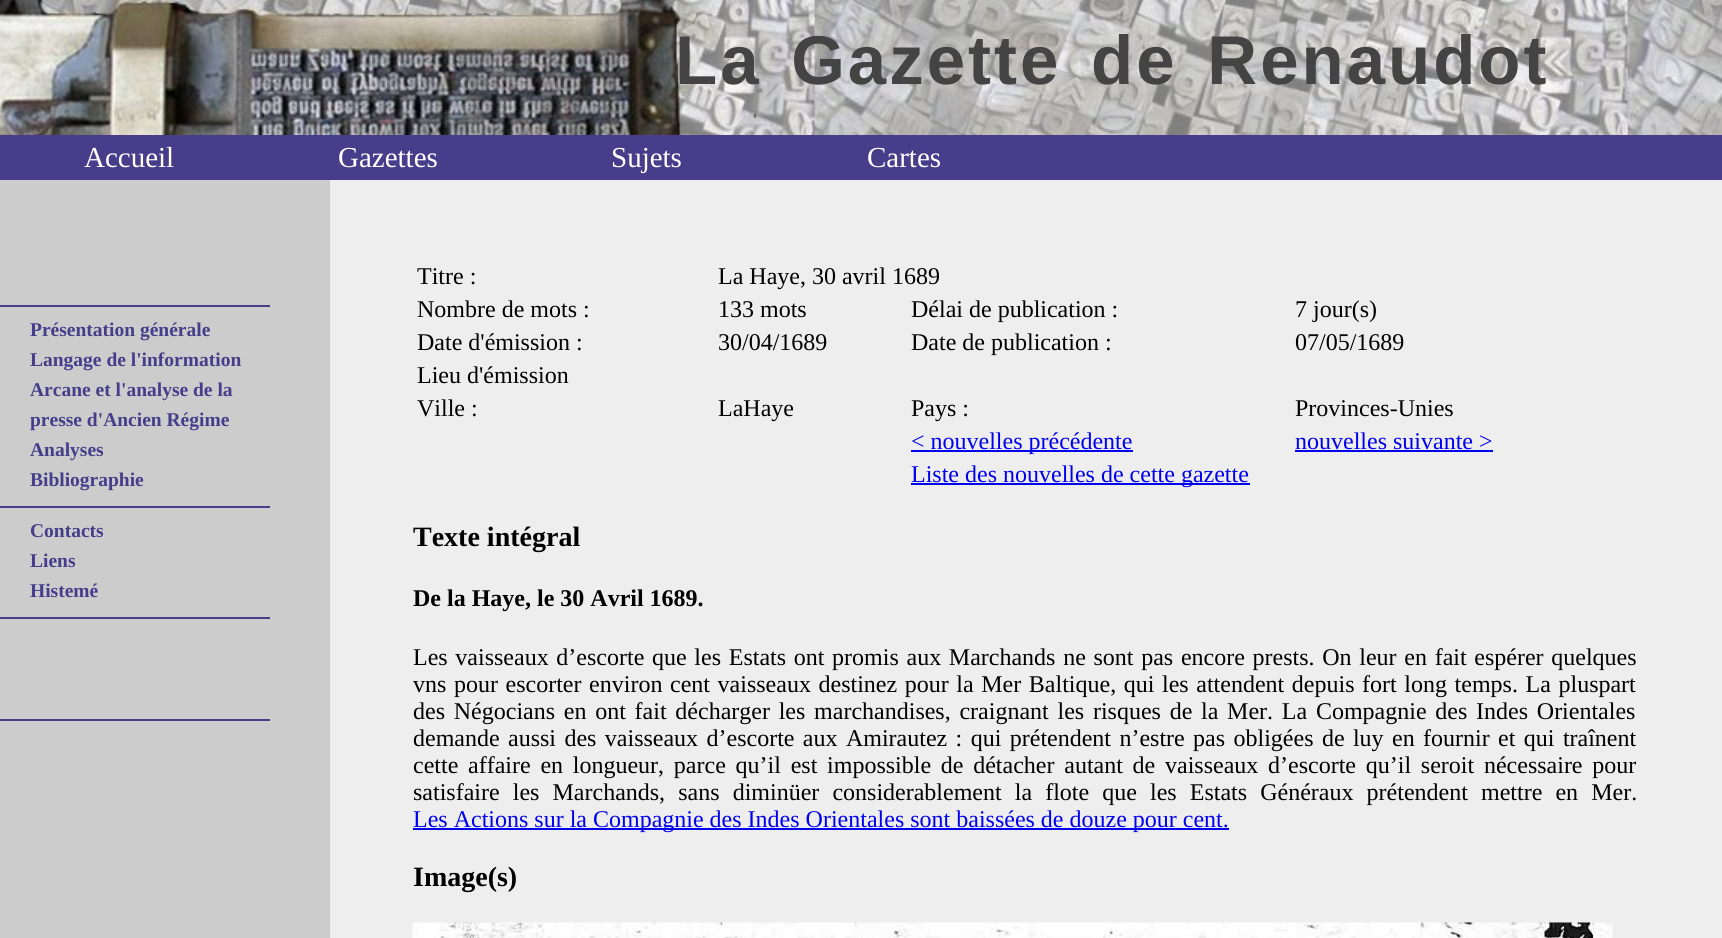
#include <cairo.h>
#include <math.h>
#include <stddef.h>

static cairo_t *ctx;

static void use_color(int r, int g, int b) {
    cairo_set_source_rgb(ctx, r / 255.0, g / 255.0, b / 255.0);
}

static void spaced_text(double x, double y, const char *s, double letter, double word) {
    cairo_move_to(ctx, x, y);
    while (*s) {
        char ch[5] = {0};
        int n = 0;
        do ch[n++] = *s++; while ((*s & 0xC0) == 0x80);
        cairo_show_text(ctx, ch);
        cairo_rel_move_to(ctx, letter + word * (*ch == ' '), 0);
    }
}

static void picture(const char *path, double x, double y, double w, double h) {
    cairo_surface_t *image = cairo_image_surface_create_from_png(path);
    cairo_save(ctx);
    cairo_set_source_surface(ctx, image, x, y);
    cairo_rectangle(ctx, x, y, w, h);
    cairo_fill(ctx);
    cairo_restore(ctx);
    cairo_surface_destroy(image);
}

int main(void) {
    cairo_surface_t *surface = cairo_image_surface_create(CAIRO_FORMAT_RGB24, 1722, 938);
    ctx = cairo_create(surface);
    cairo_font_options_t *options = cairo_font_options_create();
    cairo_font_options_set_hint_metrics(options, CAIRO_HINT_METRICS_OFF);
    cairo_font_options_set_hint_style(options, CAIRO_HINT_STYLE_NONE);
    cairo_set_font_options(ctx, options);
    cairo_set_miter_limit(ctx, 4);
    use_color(238, 238, 238);
    cairo_paint(ctx);
    picture("img1.png", 0, 0, 1722, 135);
    cairo_select_font_face(ctx, "Liberation Sans", CAIRO_FONT_SLANT_NORMAL, CAIRO_FONT_WEIGHT_BOLD);
    cairo_set_font_size(ctx, 69);
    use_color(68, 68, 68);
    spaced_text(675, 84, "La Gazette de Renaudot", 3, 7.5);
    use_color(72, 61, 139);
    cairo_rectangle(ctx, 0, 135, 1722, 45);
    cairo_fill(ctx);
    cairo_select_font_face(ctx, "Liberation Serif", CAIRO_FONT_SLANT_NORMAL, CAIRO_FONT_WEIGHT_NORMAL);
    cairo_set_font_size(ctx, 29);
    use_color(255, 255, 255);
    cairo_move_to(ctx, 84, 167);
    cairo_show_text(ctx, "Accueil");
    cairo_move_to(ctx, 338, 167);
    cairo_show_text(ctx, "Gazettes");
    cairo_move_to(ctx, 611, 167);
    cairo_show_text(ctx, "Sujets");
    cairo_move_to(ctx, 867, 167);
    cairo_show_text(ctx, "Cartes");
    use_color(204, 204, 204);
    cairo_rectangle(ctx, 0, 180, 330, 758);
    cairo_fill(ctx);
    use_color(72, 61, 139);
    cairo_rectangle(ctx, 0, 305, 270, 2);
    cairo_fill(ctx);
    cairo_select_font_face(ctx, "Liberation Serif", CAIRO_FONT_SLANT_NORMAL, CAIRO_FONT_WEIGHT_BOLD);
    cairo_set_font_size(ctx, 19.5);
    cairo_move_to(ctx, 30, 336);
    cairo_show_text(ctx, "Présentation générale");
    cairo_move_to(ctx, 30, 366);
    cairo_show_text(ctx, "Langage de l'information");
    cairo_move_to(ctx, 30, 396);
    cairo_show_text(ctx, "Arcane et l'analyse de la");
    cairo_move_to(ctx, 30, 426);
    cairo_show_text(ctx, "presse d'Ancien Régime");
    cairo_move_to(ctx, 30, 456);
    cairo_show_text(ctx, "Analyses");
    cairo_move_to(ctx, 30, 486);
    cairo_show_text(ctx, "Bibliographie");
    cairo_rectangle(ctx, 0, 506, 270, 2);
    cairo_fill(ctx);
    cairo_move_to(ctx, 30, 537);
    cairo_show_text(ctx, "Contacts");
    cairo_move_to(ctx, 30, 567);
    cairo_show_text(ctx, "Liens");
    cairo_move_to(ctx, 30, 597);
    cairo_show_text(ctx, "Histemé");
    cairo_rectangle(ctx, 0, 617, 270, 2);
    cairo_fill(ctx);
    cairo_rectangle(ctx, 0, 719, 270, 2);
    cairo_fill(ctx);
    cairo_select_font_face(ctx, "Liberation Serif", CAIRO_FONT_SLANT_NORMAL, CAIRO_FONT_WEIGHT_NORMAL);
    cairo_set_font_size(ctx, 24);
    use_color(0, 0, 0);
    cairo_move_to(ctx, 417, 284);
    cairo_show_text(ctx, "Titre :");
    cairo_move_to(ctx, 718, 284);
    cairo_show_text(ctx, "La Haye, 30 avril 1689");
    cairo_move_to(ctx, 417, 317);
    cairo_show_text(ctx, "Nombre de mots :");
    cairo_move_to(ctx, 718, 317);
    cairo_show_text(ctx, "133 mots");
    cairo_move_to(ctx, 911, 317);
    cairo_show_text(ctx, "Délai de publication :");
    cairo_move_to(ctx, 1295, 317);
    cairo_show_text(ctx, "7 jour(s)");
    cairo_move_to(ctx, 417, 350);
    cairo_show_text(ctx, "Date d'émission :");
    cairo_move_to(ctx, 718, 350);
    cairo_show_text(ctx, "30/04/1689");
    cairo_move_to(ctx, 911, 350);
    cairo_show_text(ctx, "Date de publication :");
    cairo_move_to(ctx, 1295, 350);
    cairo_show_text(ctx, "07/05/1689");
    cairo_move_to(ctx, 417, 383);
    cairo_show_text(ctx, "Lieu d'émission");
    cairo_move_to(ctx, 417, 416);
    cairo_show_text(ctx, "Ville :");
    cairo_move_to(ctx, 718, 416);
    cairo_show_text(ctx, "LaHaye");
    cairo_move_to(ctx, 911, 416);
    cairo_show_text(ctx, "Pays :");
    cairo_move_to(ctx, 1295, 416);
    cairo_show_text(ctx, "Provinces-Unies");
    use_color(0, 0, 238);
    cairo_rectangle(ctx, 911, 450, 222, 2);
    cairo_fill(ctx);
    cairo_move_to(ctx, 911, 449);
    cairo_show_text(ctx, "< nouvelles précédente");
    cairo_move_to(ctx, 1295, 449);
    cairo_show_text(ctx, "nouvelles suivante >");
    cairo_rectangle(ctx, 1295, 450, 198, 2);
    cairo_fill(ctx);
    cairo_rectangle(ctx, 911, 483, 339, 2);
    cairo_fill(ctx);
    cairo_move_to(ctx, 911, 482);
    cairo_show_text(ctx, "Liste des nouvelles de cette gazette");
    cairo_select_font_face(ctx, "Liberation Serif", CAIRO_FONT_SLANT_NORMAL, CAIRO_FONT_WEIGHT_BOLD);
    cairo_set_font_size(ctx, 28);
    use_color(0, 0, 0);
    cairo_move_to(ctx, 413, 546);
    cairo_show_text(ctx, "Texte intégral");
    cairo_set_font_size(ctx, 24);
    cairo_move_to(ctx, 413, 606);
    cairo_show_text(ctx, "De la Haye, le 30 Avril 1689.");
    cairo_select_font_face(ctx, "Liberation Serif", CAIRO_FONT_SLANT_NORMAL, CAIRO_FONT_WEIGHT_NORMAL);
    spaced_text(413, 665, "Les vaisseaux d’escorte que les Estats ont promis aux Marchands ne sont pas encore prests. On leur en fait espérer quelques", 0, 1.7);
    spaced_text(413, 692, "vns pour escorter environ cent vaisseaux destinez pour la Mer Baltique, qui les attendent depuis fort long temps. La pluspart", 0, 1.6);
    spaced_text(413, 719, "des Négocians en ont fait décharger les marchandises, craignant les risques de la Mer. La Compagnie des Indes Orientales", 0, 2.75);
    spaced_text(413, 746, "demande aussi des vaisseaux d’escorte aux Amirautez : qui prétendent n’estre pas obligées de luy en fournir et qui traînent", 0, 2.4);
    spaced_text(413, 773, "cette affaire en longueur, parce qu’il est impossible de détacher autant de vaisseaux d’escorte qu’il seroit nécessaire pour", 0, 3.75);
    spaced_text(413, 800, "satisfaire les Marchands, sans diminüer considerablement la flote que les Estats Généraux prétendent mettre en Mer.", 0, 7.1);
    use_color(0, 0, 238);
    cairo_rectangle(ctx, 413, 828, 816, 2);
    cairo_fill(ctx);
    cairo_move_to(ctx, 413, 827);
    cairo_show_text(ctx, "Les Actions sur la Compagnie des Indes Orientales sont baissées de douze pour cent.");
    cairo_select_font_face(ctx, "Liberation Serif", CAIRO_FONT_SLANT_NORMAL, CAIRO_FONT_WEIGHT_BOLD);
    cairo_set_font_size(ctx, 28);
    use_color(0, 0, 0);
    cairo_move_to(ctx, 413, 886);
    cairo_show_text(ctx, "Image(s)");
    picture("img2.png", 412, 922, 1201, 16);
    cairo_surface_write_to_png(surface, "result.png");
    cairo_font_options_destroy(options);
    cairo_destroy(ctx);
    cairo_surface_destroy(surface);
    return 0;
}
